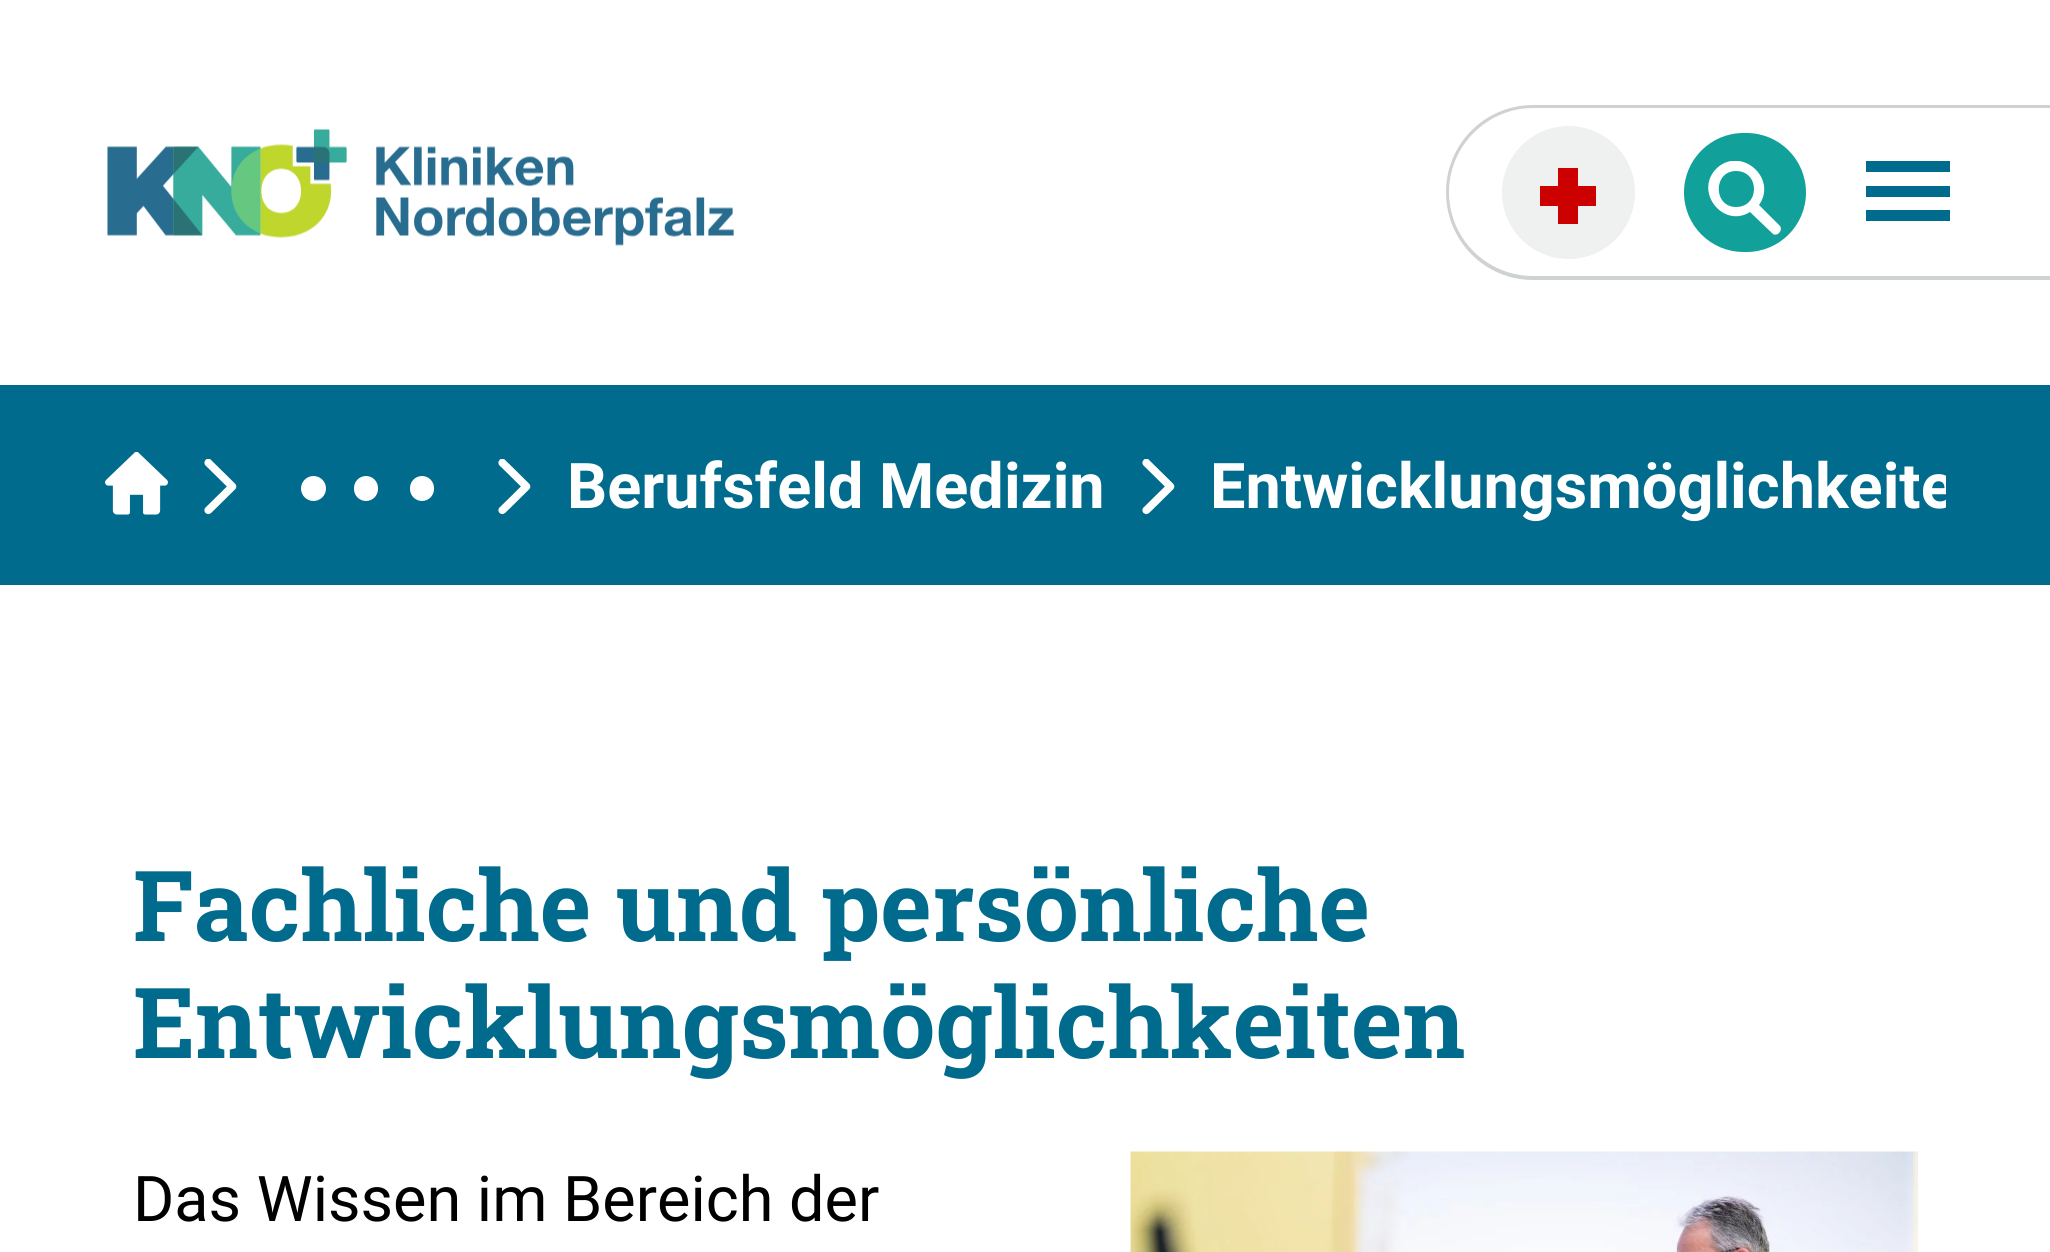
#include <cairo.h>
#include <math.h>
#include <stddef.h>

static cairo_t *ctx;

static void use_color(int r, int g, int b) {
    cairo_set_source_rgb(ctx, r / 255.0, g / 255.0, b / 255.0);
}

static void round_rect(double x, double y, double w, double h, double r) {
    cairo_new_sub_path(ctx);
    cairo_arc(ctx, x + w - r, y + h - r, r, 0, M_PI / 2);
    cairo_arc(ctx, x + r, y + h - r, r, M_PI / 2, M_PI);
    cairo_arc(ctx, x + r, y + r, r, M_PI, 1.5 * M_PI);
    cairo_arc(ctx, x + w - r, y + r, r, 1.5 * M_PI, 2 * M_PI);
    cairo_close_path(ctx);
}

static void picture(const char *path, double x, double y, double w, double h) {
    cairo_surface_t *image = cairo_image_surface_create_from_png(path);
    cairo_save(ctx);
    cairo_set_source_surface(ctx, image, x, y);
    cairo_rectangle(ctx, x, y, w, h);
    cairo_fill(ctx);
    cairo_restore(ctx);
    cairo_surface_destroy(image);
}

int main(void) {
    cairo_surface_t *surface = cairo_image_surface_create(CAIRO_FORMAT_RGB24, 2050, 1252);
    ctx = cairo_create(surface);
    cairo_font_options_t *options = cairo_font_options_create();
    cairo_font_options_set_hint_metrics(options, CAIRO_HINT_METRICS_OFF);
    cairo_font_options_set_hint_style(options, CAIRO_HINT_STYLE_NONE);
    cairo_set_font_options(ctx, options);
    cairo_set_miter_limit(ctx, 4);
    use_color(255, 255, 255);
    cairo_paint(ctx);
    picture("img1.png", 107, 129, 627, 117);
    use_color(206, 210, 209);
    cairo_set_fill_rule(ctx, CAIRO_FILL_RULE_EVEN_ODD);
    cairo_new_path(ctx);
    cairo_move_to(ctx, 1533, 105);
    cairo_line_to(ctx, 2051, 105);
    cairo_line_to(ctx, 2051, 280);
    cairo_line_to(ctx, 1533, 280);
    cairo_curve_to(ctx, 1485, 280, 1446, 241, 1446, 192);
    cairo_curve_to(ctx, 1446, 144, 1485, 105, 1533, 105);
    cairo_close_path(ctx);
    cairo_move_to(ctx, 1533, 108);
    cairo_line_to(ctx, 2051, 108);
    cairo_line_to(ctx, 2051, 276);
    cairo_line_to(ctx, 1533, 276);
    cairo_curve_to(ctx, 1487, 276, 1449, 239, 1449, 192);
    cairo_curve_to(ctx, 1449, 146, 1487, 108, 1533, 108);
    cairo_close_path(ctx);
    cairo_fill(ctx);
    use_color(239, 241, 240);
    cairo_arc(ctx, 1568.5, 192.5, 66.5, 0, 2 * M_PI);
    cairo_fill(ctx);
    use_color(205, 0, 0);
    cairo_set_fill_rule(ctx, CAIRO_FILL_RULE_WINDING);
    cairo_new_path(ctx);
    cairo_move_to(ctx, 1558, 168);
    cairo_line_to(ctx, 1558, 186);
    cairo_line_to(ctx, 1540, 186);
    cairo_line_to(ctx, 1540, 206);
    cairo_line_to(ctx, 1558, 206);
    cairo_line_to(ctx, 1558, 224);
    cairo_line_to(ctx, 1578, 224);
    cairo_line_to(ctx, 1578, 206);
    cairo_line_to(ctx, 1596, 206);
    cairo_line_to(ctx, 1596, 186);
    cairo_line_to(ctx, 1578, 186);
    cairo_line_to(ctx, 1578, 168);
    cairo_close_path(ctx);
    cairo_fill(ctx);
    use_color(18, 161, 154);
    round_rect(1684, 133, 122, 119, 59.5);
    cairo_fill(ctx);
    cairo_save(ctx);
    cairo_rectangle(ctx, 1708, 161, 74, 74);
    cairo_clip(ctx);
    use_color(255, 255, 255);
    cairo_new_path(ctx);
    cairo_move_to(ctx, 1759, 205);
    cairo_curve_to(ctx, 1778, 178, 1741, 146, 1717, 168);
    cairo_curve_to(ctx, 1693, 191, 1723, 229, 1750, 212);
    cairo_line_to(ctx, 1773, 234);
    cairo_curve_to(ctx, 1778, 237, 1784, 229, 1779, 225);
    cairo_close_path(ctx);
    cairo_move_to(ctx, 1736, 207);
    cairo_curve_to(ctx, 1713, 207, 1713, 171, 1736, 171);
    cairo_curve_to(ctx, 1760, 171, 1760, 207, 1736, 207);
    cairo_close_path(ctx);
    cairo_fill(ctx);
    cairo_restore(ctx);
    use_color(0, 107, 140);
    cairo_rectangle(ctx, 1866, 161, 84, 11);
    cairo_fill(ctx);
    cairo_rectangle(ctx, 1866, 186, 84, 11);
    cairo_fill(ctx);
    cairo_rectangle(ctx, 1866, 210, 84, 11);
    cairo_fill(ctx);
    cairo_rectangle(ctx, 0, 385, 2050, 200);
    cairo_fill(ctx);
    picture("img2.png", 105, 452, 63, 63);
    picture("img3.png", 204, 459, 33, 56);
    use_color(255, 255, 255);
    cairo_arc(ctx, 313.5, 488.5, 12.5, 0, 2 * M_PI);
    cairo_fill(ctx);
    round_rect(354, 476, 24, 25, 12);
    cairo_fill(ctx);
    round_rect(410, 476, 24, 25, 12);
    cairo_fill(ctx);
    picture("img4.png", 498, 459, 33, 56);
    cairo_select_font_face(ctx, "Roboto", CAIRO_FONT_SLANT_NORMAL, CAIRO_FONT_WEIGHT_BOLD);
    cairo_set_font_size(ctx, 63);
    cairo_move_to(ctx, 567, 508);
    cairo_show_text(ctx, "Berufsfeld Medizin");
    picture("img3.png", 1142, 459, 33, 56);
    cairo_save(ctx);
    cairo_rectangle(ctx, 105, 385, 1841, 200);
    cairo_clip(ctx);
    cairo_move_to(ctx, 1210, 508);
    cairo_show_text(ctx, "Entwicklungsmöglichkeite");
    cairo_restore(ctx);
    cairo_select_font_face(ctx, "Roboto Slab", CAIRO_FONT_SLANT_NORMAL, CAIRO_FONT_WEIGHT_BOLD);
    cairo_set_font_size(ctx, 98);
    use_color(0, 107, 140);
    cairo_move_to(ctx, 133, 941);
    cairo_show_text(ctx, "Fachliche und persönliche");
    cairo_move_to(ctx, 133, 1058);
    cairo_show_text(ctx, "Entwicklungsmöglichkeiten");
    cairo_select_font_face(ctx, "Roboto", CAIRO_FONT_SLANT_NORMAL, CAIRO_FONT_WEIGHT_NORMAL);
    cairo_set_font_size(ctx, 63);
    use_color(0, 0, 0);
    cairo_move_to(ctx, 133, 1221);
    cairo_show_text(ctx, "Das Wissen im Bereich der");
    picture("img5.png", 1130, 1151, 788, 101);
    cairo_surface_write_to_png(surface, "result.png");
    cairo_font_options_destroy(options);
    cairo_destroy(ctx);
    cairo_surface_destroy(surface);
    return 0;
}
